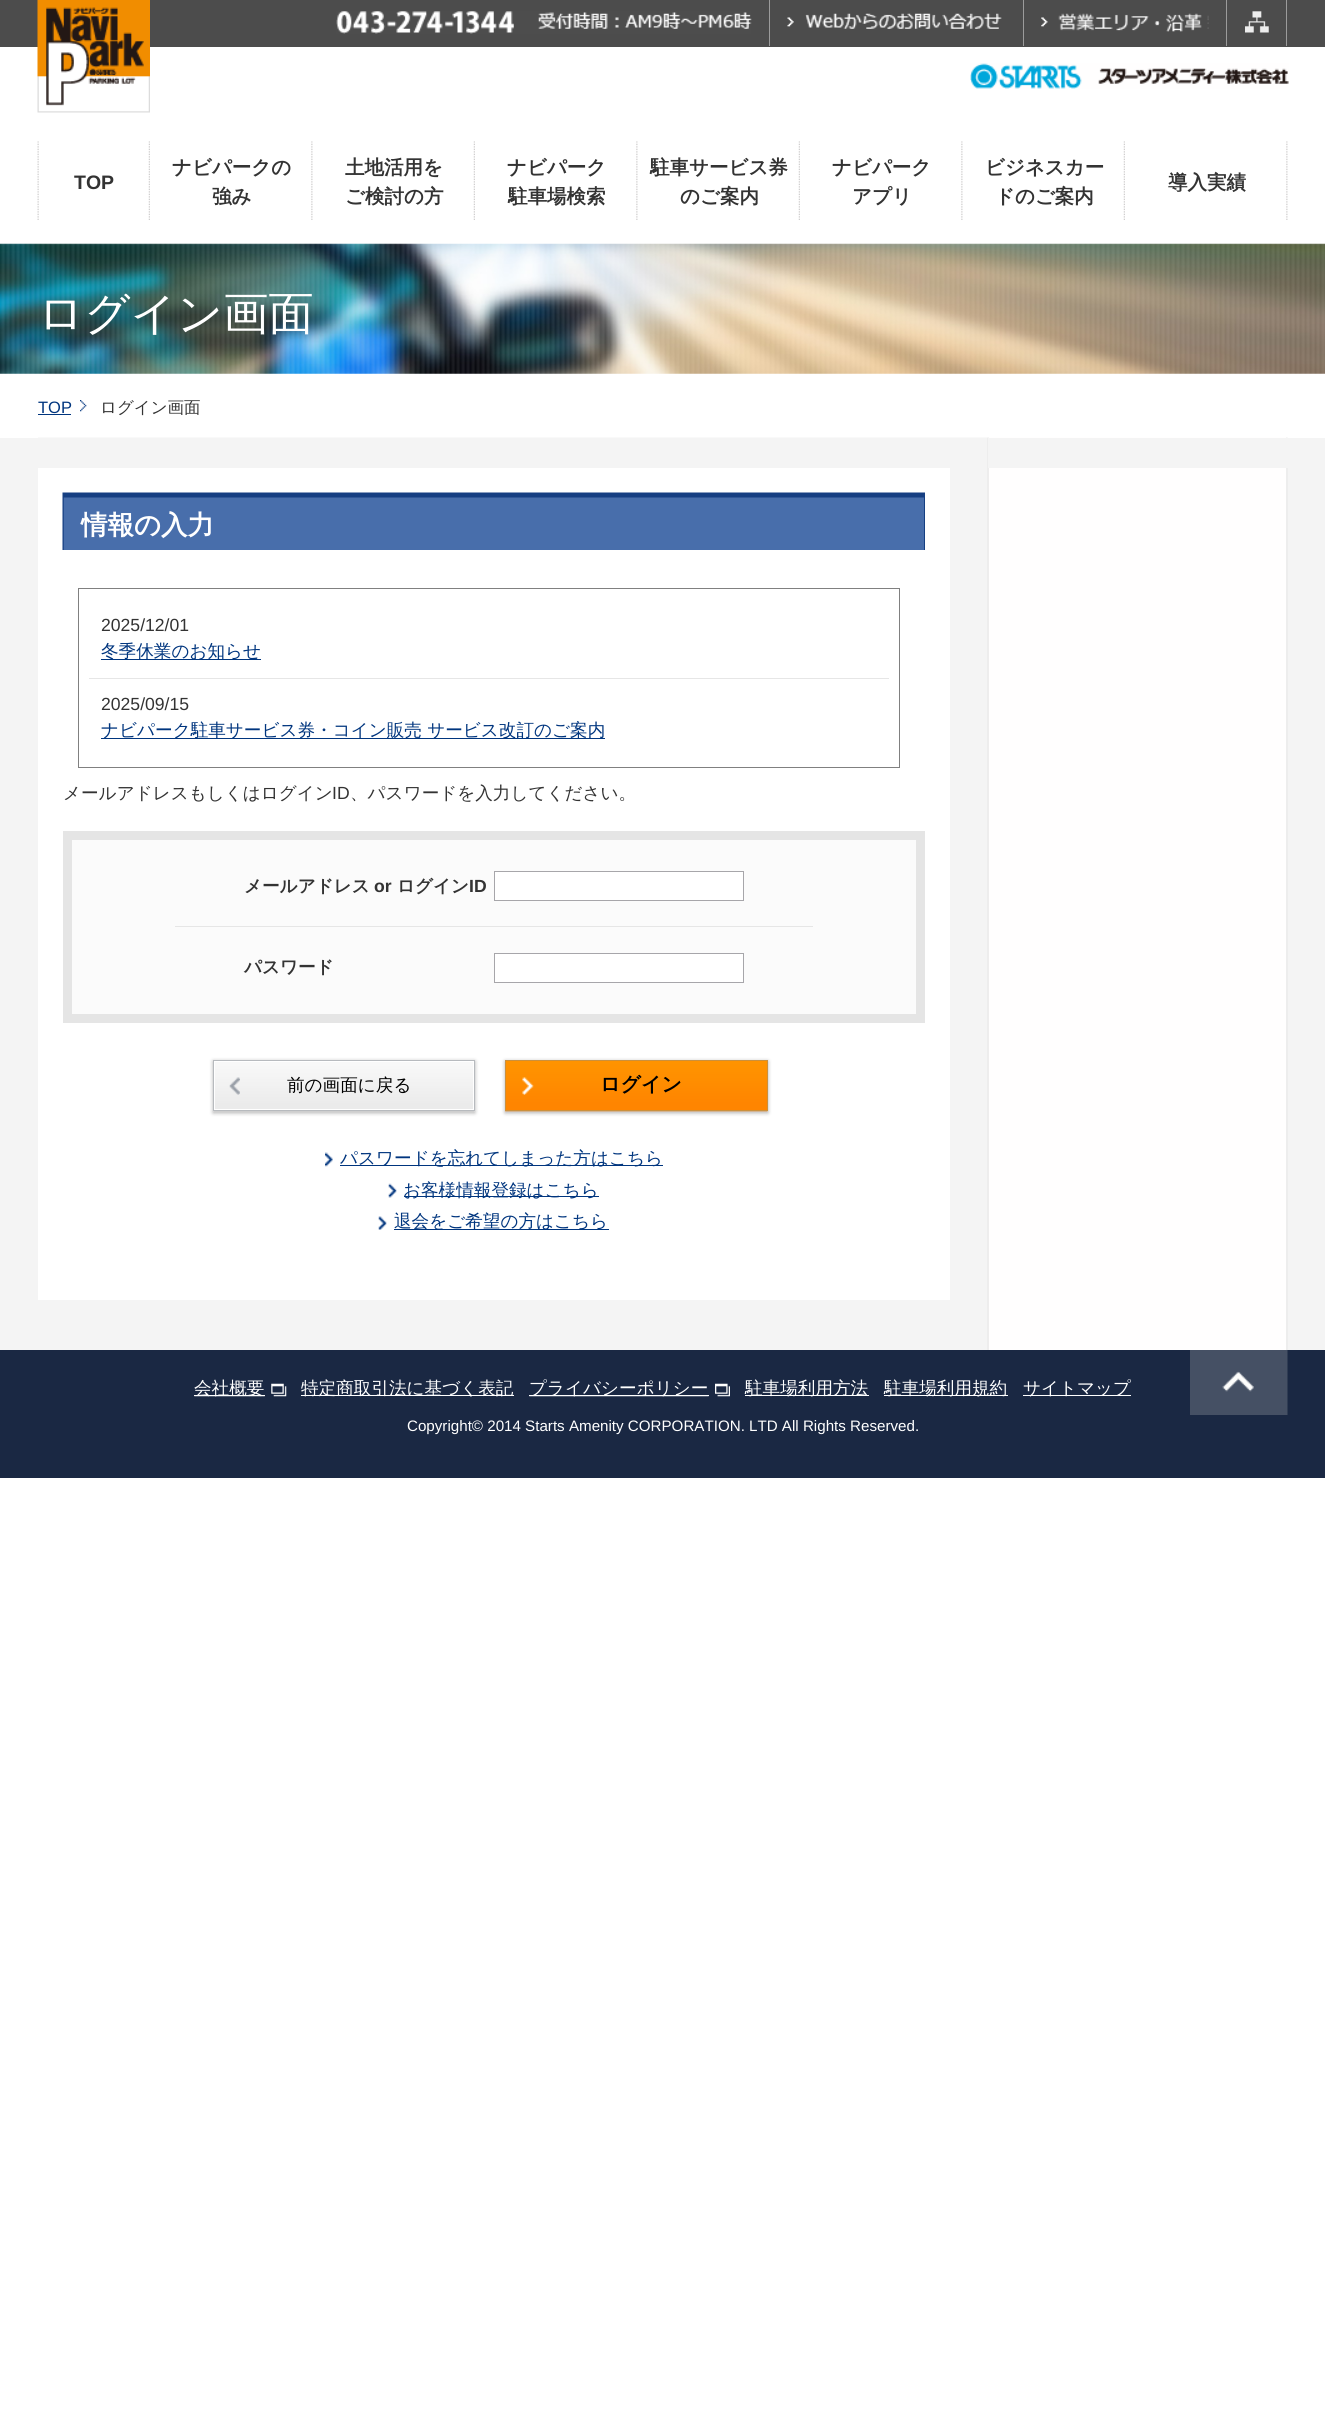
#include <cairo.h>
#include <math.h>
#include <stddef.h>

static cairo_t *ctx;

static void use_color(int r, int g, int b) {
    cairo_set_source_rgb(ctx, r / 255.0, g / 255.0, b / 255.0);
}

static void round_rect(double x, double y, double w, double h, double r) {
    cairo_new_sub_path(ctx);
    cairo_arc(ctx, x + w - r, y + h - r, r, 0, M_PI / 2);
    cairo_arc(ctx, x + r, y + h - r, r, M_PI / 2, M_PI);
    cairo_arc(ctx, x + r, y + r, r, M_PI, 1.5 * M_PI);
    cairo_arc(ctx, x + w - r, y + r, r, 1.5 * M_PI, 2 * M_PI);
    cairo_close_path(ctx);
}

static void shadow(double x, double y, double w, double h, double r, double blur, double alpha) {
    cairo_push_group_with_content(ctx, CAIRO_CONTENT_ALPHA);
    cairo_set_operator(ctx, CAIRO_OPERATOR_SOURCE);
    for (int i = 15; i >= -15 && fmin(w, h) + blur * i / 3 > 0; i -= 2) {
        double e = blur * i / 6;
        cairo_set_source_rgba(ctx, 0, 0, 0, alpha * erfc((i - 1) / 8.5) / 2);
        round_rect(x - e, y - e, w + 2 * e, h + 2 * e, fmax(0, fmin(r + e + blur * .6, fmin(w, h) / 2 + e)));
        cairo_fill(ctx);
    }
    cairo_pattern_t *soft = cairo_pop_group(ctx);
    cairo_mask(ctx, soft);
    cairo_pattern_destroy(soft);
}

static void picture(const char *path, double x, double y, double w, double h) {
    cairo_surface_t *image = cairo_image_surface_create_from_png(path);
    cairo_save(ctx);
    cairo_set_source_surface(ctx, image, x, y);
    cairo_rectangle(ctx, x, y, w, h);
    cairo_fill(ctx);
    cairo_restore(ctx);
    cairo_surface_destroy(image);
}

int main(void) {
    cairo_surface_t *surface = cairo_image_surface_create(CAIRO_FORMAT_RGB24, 1325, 2418);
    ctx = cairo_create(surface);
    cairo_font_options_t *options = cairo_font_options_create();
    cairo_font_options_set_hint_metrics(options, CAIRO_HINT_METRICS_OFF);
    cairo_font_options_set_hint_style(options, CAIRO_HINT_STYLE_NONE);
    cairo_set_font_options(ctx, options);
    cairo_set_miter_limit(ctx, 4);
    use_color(255, 255, 255);
    cairo_paint(ctx);
    use_color(76, 76, 76);
    cairo_rectangle(ctx, 0, 0, 1325, 47);
    cairo_fill(ctx);
    picture("img1.png", 37, 0, 113, 113);
    use_color(155, 155, 155);
    cairo_rectangle(ctx, 769, 0, 1, 46);
    cairo_fill(ctx);
    picture("img2.png", 336, 11, 416, 23);
    cairo_rectangle(ctx, 1023, 0, 1, 46);
    cairo_fill(ctx);
    picture("img3.png", 787, 13, 215, 16);
    cairo_rectangle(ctx, 1226, 0, 1, 46);
    cairo_fill(ctx);
    picture("img4.png", 1041, 13, 168, 19);
    cairo_rectangle(ctx, 1286, 0, 1, 46);
    cairo_fill(ctx);
    picture("img5.png", 1245, 11, 24, 22);
    picture("img6.png", 970, 63, 319, 26);
    picture("img7.png", 37, 141, 2, 79);
    picture("img8.png", 148, 141, 2, 79);
    cairo_select_font_face(ctx, "Liberation Sans", CAIRO_FONT_SLANT_NORMAL, CAIRO_FONT_WEIGHT_BOLD);
    cairo_set_font_size(ctx, 19.5);
    use_color(51, 51, 51);
    cairo_move_to(ctx, 74, 189);
    cairo_show_text(ctx, "TOP");
    picture("img9.png", 311, 141, 2, 79);
    cairo_select_font_face(ctx, "WenQuanYi Zen Hei", CAIRO_FONT_SLANT_NORMAL, CAIRO_FONT_WEIGHT_BOLD);
    cairo_move_to(ctx, 172, 174);
    cairo_show_text(ctx, "ナビパークの");
    cairo_move_to(ctx, 212, 203);
    cairo_show_text(ctx, "強み");
    picture("img8.png", 473, 141, 2, 79);
    cairo_move_to(ctx, 345, 174);
    cairo_show_text(ctx, "土地活用を");
    cairo_move_to(ctx, 345, 203);
    cairo_show_text(ctx, "ご検討の方");
    picture("img9.png", 636, 141, 2, 79);
    cairo_move_to(ctx, 507, 174);
    cairo_show_text(ctx, "ナビパーク");
    cairo_move_to(ctx, 508, 203);
    cairo_show_text(ctx, "駐車場検索");
    picture("img8.png", 798, 141, 2, 79);
    cairo_move_to(ctx, 650, 174);
    cairo_show_text(ctx, "駐車サービス券");
    cairo_move_to(ctx, 680, 203);
    cairo_show_text(ctx, "のご案内");
    picture("img9.png", 961, 141, 2, 79);
    cairo_move_to(ctx, 832, 174);
    cairo_show_text(ctx, "ナビパーク");
    cairo_move_to(ctx, 852, 203);
    cairo_show_text(ctx, "アプリ");
    picture("img8.png", 1123, 141, 2, 79);
    cairo_move_to(ctx, 985, 174);
    cairo_show_text(ctx, "ビジネスカー");
    cairo_move_to(ctx, 995, 203);
    cairo_show_text(ctx, "ドのご案内");
    picture("img9.png", 1286, 141, 2, 79);
    cairo_move_to(ctx, 1168, 189);
    cairo_show_text(ctx, "導入実績");
    picture("img10.png", 0, 243, 1325, 131);
    cairo_select_font_face(ctx, "WenQuanYi Zen Hei Medium", CAIRO_FONT_SLANT_NORMAL, CAIRO_FONT_WEIGHT_NORMAL);
    cairo_set_font_size(ctx, 45.25);
    use_color(255, 255, 255);
    cairo_move_to(ctx, 38, 329);
    cairo_show_text(ctx, "ログイン画面");
    cairo_select_font_face(ctx, "Liberation Sans", CAIRO_FONT_SLANT_NORMAL, CAIRO_FONT_WEIGHT_NORMAL);
    cairo_set_font_size(ctx, 16.5);
    use_color(0, 53, 126);
    cairo_move_to(ctx, 38, 413);
    cairo_show_text(ctx, "TOP");
    cairo_rectangle(ctx, 38, 414, 33, 1);
    cairo_fill(ctx);
    picture("img11.png", 80, 400, 7, 12);
    cairo_select_font_face(ctx, "WenQuanYi Zen Hei Medium", CAIRO_FONT_SLANT_NORMAL, CAIRO_FONT_WEIGHT_NORMAL);
    use_color(51, 51, 51);
    cairo_move_to(ctx, 100, 413);
    cairo_show_text(ctx, "ログイン画面");
    use_color(244, 244, 244);
    cairo_rectangle(ctx, 0, 438, 1325, 912);
    cairo_fill(ctx);
    picture("img12.png", 38, 437, 1250, 913);
    cairo_rectangle(ctx, 988, 438, 300, 30);
    cairo_fill(ctx);
    use_color(255, 255, 255);
    cairo_rectangle(ctx, 38, 468, 912, 832);
    cairo_fill(ctx);
    picture("img13.png", 62, 492, 863, 58);
    use_color(22, 63, 130);
    cairo_rectangle(ctx, 924, 493, 1, 57);
    cairo_fill(ctx);
    cairo_select_font_face(ctx, "WenQuanYi Zen Hei", CAIRO_FONT_SLANT_NORMAL, CAIRO_FONT_WEIGHT_BOLD);
    cairo_set_font_size(ctx, 26.5);
    use_color(255, 255, 255);
    cairo_move_to(ctx, 81, 534);
    cairo_show_text(ctx, "情報の入力");
    cairo_rectangle(ctx, 78.5, 588.5, 821, 179);
    use_color(128, 128, 128);
    cairo_set_line_width(ctx, 1);
    cairo_stroke(ctx);
    cairo_select_font_face(ctx, "Liberation Sans", CAIRO_FONT_SLANT_NORMAL, CAIRO_FONT_WEIGHT_NORMAL);
    cairo_set_font_size(ctx, 17.6);
    use_color(51, 51, 51);
    cairo_move_to(ctx, 101, 631);
    cairo_show_text(ctx, "2025/12/01");
    use_color(0, 53, 126);
    cairo_rectangle(ctx, 101, 659, 160, 1);
    cairo_fill(ctx);
    cairo_select_font_face(ctx, "WenQuanYi Zen Hei Medium", CAIRO_FONT_SLANT_NORMAL, CAIRO_FONT_WEIGHT_NORMAL);
    cairo_move_to(ctx, 101, 657);
    cairo_show_text(ctx, "冬季休業のお知らせ");
    use_color(230, 230, 230);
    cairo_rectangle(ctx, 89, 678, 800, 1);
    cairo_fill(ctx);
    cairo_select_font_face(ctx, "Liberation Sans", CAIRO_FONT_SLANT_NORMAL, CAIRO_FONT_WEIGHT_NORMAL);
    use_color(51, 51, 51);
    cairo_move_to(ctx, 101, 710);
    cairo_show_text(ctx, "2025/09/15");
    use_color(0, 53, 126);
    cairo_rectangle(ctx, 101, 738, 504, 1);
    cairo_fill(ctx);
    cairo_select_font_face(ctx, "WenQuanYi Zen Hei Medium", CAIRO_FONT_SLANT_NORMAL, CAIRO_FONT_WEIGHT_NORMAL);
    cairo_move_to(ctx, 101, 736);
    cairo_show_text(ctx, "ナビパーク駐車サービス券・コイン販売 サービス改訂のご案内");
    use_color(51, 51, 51);
    cairo_move_to(ctx, 63, 799);
    cairo_show_text(ctx, "メールアドレスもしくはログイン");
    cairo_select_font_face(ctx, "Liberation Sans", CAIRO_FONT_SLANT_NORMAL, CAIRO_FONT_WEIGHT_NORMAL);
    cairo_move_to(ctx, 332, 799);
    cairo_show_text(ctx, "ID");
    cairo_select_font_face(ctx, "WenQuanYi Zen Hei Medium", CAIRO_FONT_SLANT_NORMAL, CAIRO_FONT_WEIGHT_NORMAL);
    cairo_move_to(ctx, 350, 799);
    cairo_show_text(ctx, "、パスワードを入力してください。");
    use_color(251, 251, 251);
    cairo_rectangle(ctx, 67.5, 835.5, 853, 183);
    cairo_fill_preserve(ctx);
    use_color(229, 229, 229);
    cairo_set_line_width(ctx, 9);
    cairo_stroke(ctx);
    use_color(230, 230, 230);
    cairo_rectangle(ctx, 175, 926, 638, 1);
    cairo_fill(ctx);
    cairo_select_font_face(ctx, "WenQuanYi Zen Hei", CAIRO_FONT_SLANT_NORMAL, CAIRO_FONT_WEIGHT_BOLD);
    use_color(51, 51, 51);
    cairo_move_to(ctx, 244, 892);
    cairo_show_text(ctx, "メールアドレス");
    cairo_select_font_face(ctx, "Liberation Sans", CAIRO_FONT_SLANT_NORMAL, CAIRO_FONT_WEIGHT_BOLD);
    cairo_move_to(ctx, 374, 892);
    cairo_show_text(ctx, "or");
    cairo_select_font_face(ctx, "WenQuanYi Zen Hei", CAIRO_FONT_SLANT_NORMAL, CAIRO_FONT_WEIGHT_BOLD);
    cairo_move_to(ctx, 397, 892);
    cairo_show_text(ctx, "ログイン");
    cairo_select_font_face(ctx, "Liberation Sans", CAIRO_FONT_SLANT_NORMAL, CAIRO_FONT_WEIGHT_BOLD);
    cairo_move_to(ctx, 469, 892);
    cairo_show_text(ctx, "ID");
    use_color(255, 255, 255);
    cairo_rectangle(ctx, 494.5, 871.5, 249, 29);
    cairo_fill_preserve(ctx);
    use_color(167, 166, 170);
    cairo_set_line_width(ctx, 1);
    cairo_stroke(ctx);
    cairo_select_font_face(ctx, "WenQuanYi Zen Hei", CAIRO_FONT_SLANT_NORMAL, CAIRO_FONT_WEIGHT_BOLD);
    use_color(51, 51, 51);
    cairo_move_to(ctx, 244, 973);
    cairo_show_text(ctx, "パスワード");
    use_color(255, 255, 255);
    cairo_rectangle(ctx, 494.5, 953.5, 249, 29);
    cairo_fill_preserve(ctx);
    use_color(167, 166, 170);
    cairo_stroke(ctx);
    use_color(0, 0, 0);
    shadow(213, 1061, 262, 52, 0, 2, 0.3);
    picture("img14.png", 213, 1062, 262, 50);
    cairo_rectangle(ctx, 213.5, 1060.5, 261, 50);
    use_color(183, 186, 190);
    cairo_stroke(ctx);
    picture("img15.png", 229, 1077, 11, 18);
    cairo_rectangle(ctx, 214.5, 1061.5, 259, 48);
    use_color(255, 255, 255);
    cairo_stroke(ctx);
    cairo_select_font_face(ctx, "WenQuanYi Zen Hei Medium", CAIRO_FONT_SLANT_NORMAL, CAIRO_FONT_WEIGHT_NORMAL);
    use_color(0, 0, 0);
    cairo_move_to(ctx, 287, 1091);
    cairo_show_text(ctx, "前の画面に戻る");
    use_color(0, 0, 0);
    shadow(505, 1061, 263, 52, 0, 2, 0.3);
    picture("img16.png", 505, 1061, 263, 51);
    cairo_rectangle(ctx, 505.5, 1060.5, 262, 50);
    use_color(202, 144, 62);
    cairo_stroke(ctx);
    picture("img17.png", 522, 1077, 12, 18);
    cairo_select_font_face(ctx, "WenQuanYi Zen Hei", CAIRO_FONT_SLANT_NORMAL, CAIRO_FONT_WEIGHT_BOLD);
    cairo_set_font_size(ctx, 20);
    use_color(0, 0, 0);
    cairo_move_to(ctx, 600, 1091);
    cairo_show_text(ctx, "ログイン");
    picture("img18.png", 325, 1152, 8, 15);
    use_color(0, 53, 126);
    cairo_rectangle(ctx, 340, 1165, 323, 1);
    cairo_fill(ctx);
    cairo_select_font_face(ctx, "WenQuanYi Zen Hei Medium", CAIRO_FONT_SLANT_NORMAL, CAIRO_FONT_WEIGHT_NORMAL);
    cairo_set_font_size(ctx, 17.6);
    cairo_move_to(ctx, 340, 1164);
    cairo_show_text(ctx, "パスワードを忘れてしまった方はこちら");
    picture("img19.png", 388, 1183, 9, 15);
    cairo_rectangle(ctx, 404, 1196, 195, 1);
    cairo_fill(ctx);
    cairo_move_to(ctx, 403, 1196);
    cairo_show_text(ctx, "お客様情報登録はこちら");
    picture("img20.png", 378, 1216, 9, 14);
    cairo_rectangle(ctx, 394, 1229, 215, 1);
    cairo_fill(ctx);
    cairo_move_to(ctx, 394, 1227);
    cairo_show_text(ctx, "退会をご希望の方はこちら");
    use_color(26, 40, 67);
    cairo_rectangle(ctx, 0, 1350, 1325, 128);
    cairo_fill(ctx);
    picture("img21.png", 194, 1383, 93, 14);
    use_color(255, 255, 255);
    cairo_rectangle(ctx, 194, 1395, 71, 1);
    cairo_fill(ctx);
    cairo_move_to(ctx, 194, 1394);
    cairo_show_text(ctx, "会社概要");
    cairo_rectangle(ctx, 301, 1395, 213, 1);
    cairo_fill(ctx);
    cairo_move_to(ctx, 301, 1394);
    cairo_show_text(ctx, "特定商取引法に基づく表記");
    picture("img22.png", 529, 1383, 201, 14);
    cairo_rectangle(ctx, 529, 1395, 180, 1);
    cairo_fill(ctx);
    cairo_move_to(ctx, 529, 1394);
    cairo_show_text(ctx, "プライバシーポリシー");
    cairo_rectangle(ctx, 745, 1395, 124, 1);
    cairo_fill(ctx);
    cairo_move_to(ctx, 745, 1394);
    cairo_show_text(ctx, "駐車場利用方法");
    cairo_rectangle(ctx, 884, 1395, 124, 1);
    cairo_fill(ctx);
    cairo_move_to(ctx, 884, 1394);
    cairo_show_text(ctx, "駐車場利用規約");
    cairo_rectangle(ctx, 1023, 1395, 108, 1);
    cairo_fill(ctx);
    cairo_move_to(ctx, 1023, 1394);
    cairo_show_text(ctx, "サイトマップ");
    cairo_select_font_face(ctx, "Liberation Sans", CAIRO_FONT_SLANT_NORMAL, CAIRO_FONT_WEIGHT_NORMAL);
    cairo_set_font_size(ctx, 15.15);
    cairo_move_to(ctx, 407, 1431);
    cairo_show_text(ctx, "Copyright© 2014 Starts Amenity CORPORATION. LTD All Rights Reserved.");
    picture("img23.png", 1190, 1350, 98, 65);
    cairo_surface_write_to_png(surface, "result.png");
    cairo_font_options_destroy(options);
    cairo_destroy(ctx);
    cairo_surface_destroy(surface);
    return 0;
}
